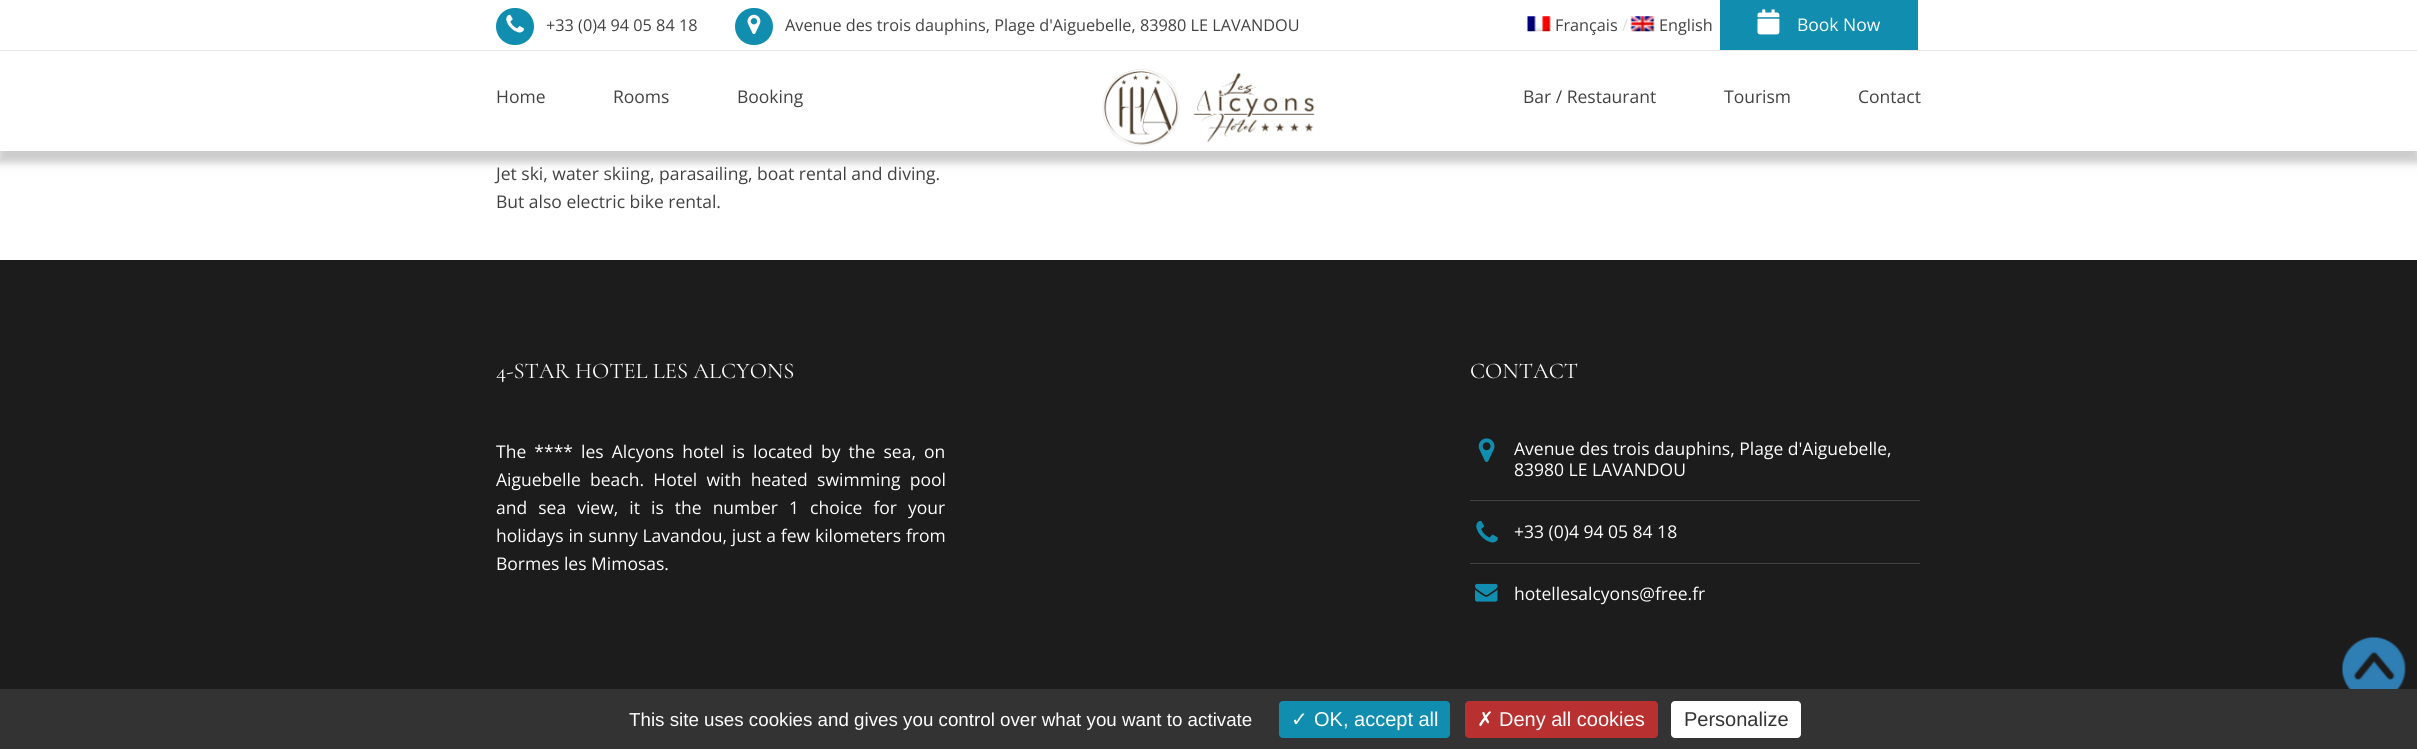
#include <cairo.h>
#include <math.h>
#include <stddef.h>

static cairo_t *ctx;

static void use_color(int r, int g, int b) {
    cairo_set_source_rgb(ctx, r / 255.0, g / 255.0, b / 255.0);
}

static void spaced_text(double x, double y, const char *s, double letter, double word) {
    cairo_move_to(ctx, x, y);
    while (*s) {
        char ch[5] = {0};
        int n = 0;
        do ch[n++] = *s++; while ((*s & 0xC0) == 0x80);
        cairo_show_text(ctx, ch);
        cairo_rel_move_to(ctx, letter + word * (*ch == ' '), 0);
    }
}

static void round_rect(double x, double y, double w, double h, double r) {
    cairo_new_sub_path(ctx);
    cairo_arc(ctx, x + w - r, y + h - r, r, 0, M_PI / 2);
    cairo_arc(ctx, x + r, y + h - r, r, M_PI / 2, M_PI);
    cairo_arc(ctx, x + r, y + r, r, M_PI, 1.5 * M_PI);
    cairo_arc(ctx, x + w - r, y + r, r, 1.5 * M_PI, 2 * M_PI);
    cairo_close_path(ctx);
}

static void shadow(double x, double y, double w, double h, double r, double blur, double alpha) {
    cairo_push_group_with_content(ctx, CAIRO_CONTENT_ALPHA);
    cairo_set_operator(ctx, CAIRO_OPERATOR_SOURCE);
    for (int i = 15; i >= -15 && fmin(w, h) + blur * i / 3 > 0; i -= 2) {
        double e = blur * i / 6;
        cairo_set_source_rgba(ctx, 0, 0, 0, alpha * erfc((i - 1) / 8.5) / 2);
        round_rect(x - e, y - e, w + 2 * e, h + 2 * e, fmax(0, fmin(r + e + blur * .6, fmin(w, h) / 2 + e)));
        cairo_fill(ctx);
    }
    cairo_pattern_t *soft = cairo_pop_group(ctx);
    cairo_mask(ctx, soft);
    cairo_pattern_destroy(soft);
}

static void picture(const char *path, double x, double y, double w, double h) {
    cairo_surface_t *image = cairo_image_surface_create_from_png(path);
    cairo_save(ctx);
    cairo_set_source_surface(ctx, image, x, y);
    cairo_rectangle(ctx, x, y, w, h);
    cairo_fill(ctx);
    cairo_restore(ctx);
    cairo_surface_destroy(image);
}

int main(void) {
    cairo_surface_t *surface = cairo_image_surface_create(CAIRO_FORMAT_RGB24, 2417, 749);
    ctx = cairo_create(surface);
    cairo_font_options_t *options = cairo_font_options_create();
    cairo_font_options_set_hint_metrics(options, CAIRO_HINT_METRICS_OFF);
    cairo_font_options_set_hint_style(options, CAIRO_HINT_STYLE_NONE);
    cairo_set_font_options(ctx, options);
    cairo_set_miter_limit(ctx, 4);
    use_color(255, 255, 255);
    cairo_paint(ctx);
    use_color(0, 0, 0);
    shadow(-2, 6, 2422, 157, 0, 4, 0.2);
    use_color(255, 255, 255);
    cairo_rectangle(ctx, 0, 0, 2417, 151);
    cairo_fill(ctx);
    use_color(232, 232, 232);
    cairo_rectangle(ctx, 0, 50, 2417, 1);
    cairo_fill(ctx);
    use_color(17, 142, 175);
    round_rect(496, 8, 38, 37, 18.5);
    cairo_fill(ctx);
    picture("img1.png", 506, 14, 18, 19);
    cairo_select_font_face(ctx, "Open Sans", CAIRO_FONT_SLANT_NORMAL, CAIRO_FONT_WEIGHT_NORMAL);
    cairo_set_font_size(ctx, 16.25);
    use_color(66, 66, 66);
    cairo_move_to(ctx, 546, 31);
    cairo_show_text(ctx, "+33 (0)4 94 05 84 18");
    use_color(17, 142, 175);
    round_rect(735, 8, 38, 37, 18.5);
    cairo_fill(ctx);
    picture("img2.png", 747, 14, 14, 21);
    use_color(66, 66, 66);
    cairo_move_to(ctx, 785, 31);
    cairo_show_text(ctx, "Avenue des trois dauphins, Plage d'Aiguebelle, 83980 LE LAVANDOU");
    picture("img3.png", 1527, 16, 24, 16);
    cairo_move_to(ctx, 1555, 31);
    cairo_show_text(ctx, "Français");
    use_color(221, 221, 221);
    cairo_move_to(ctx, 1622, 31);
    cairo_show_text(ctx, "/");
    picture("img4.png", 1630, 16, 25, 16);
    use_color(66, 66, 66);
    cairo_move_to(ctx, 1659, 31);
    cairo_show_text(ctx, "English");
    use_color(17, 142, 175);
    cairo_rectangle(ctx, 1720, 0, 198, 50);
    cairo_fill(ctx);
    picture("img5.png", 1757, 9, 23, 26);
    cairo_set_font_size(ctx, 17.5);
    use_color(255, 255, 255);
    cairo_move_to(ctx, 1797, 31);
    cairo_show_text(ctx, "Book Now");
    use_color(66, 66, 66);
    cairo_move_to(ctx, 496, 103);
    cairo_show_text(ctx, "Home");
    cairo_move_to(ctx, 613, 103);
    cairo_show_text(ctx, "Rooms");
    cairo_move_to(ctx, 737, 103);
    cairo_show_text(ctx, "Booking");
    picture("img6.png", 1102, 69, 213, 78);
    cairo_move_to(ctx, 1523, 103);
    cairo_show_text(ctx, "Bar / Restaurant");
    cairo_move_to(ctx, 1724, 103);
    cairo_show_text(ctx, "Tourism");
    cairo_move_to(ctx, 1858, 103);
    cairo_show_text(ctx, "Contact");
    cairo_move_to(ctx, 496, 180);
    cairo_show_text(ctx, "Jet ski, water skiing, parasailing, boat rental and diving.");
    cairo_move_to(ctx, 496, 208);
    cairo_show_text(ctx, "But also electric bike rental.");
    use_color(28, 28, 28);
    cairo_rectangle(ctx, 0, 260, 2417, 429);
    cairo_fill(ctx);
    cairo_select_font_face(ctx, "Cormorant", CAIRO_FONT_SLANT_NORMAL, CAIRO_FONT_WEIGHT_NORMAL);
    cairo_set_font_size(ctx, 22.5);
    use_color(255, 255, 255);
    cairo_move_to(ctx, 496, 378);
    cairo_show_text(ctx, "4-STAR HOTEL LES ALCYONS");
    cairo_select_font_face(ctx, "Open Sans", CAIRO_FONT_SLANT_NORMAL, CAIRO_FONT_WEIGHT_NORMAL);
    cairo_set_font_size(ctx, 17.5);
    spaced_text(496, 458, "The **** les Alcyons hotel is located by the sea, on", 0, 3.6);
    spaced_text(496, 486, "Aiguebelle beach. Hotel with heated swimming pool", 0, 4.75);
    spaced_text(496, 514, "and sea view, it is the number 1 choice for your", 0, 6.5);
    spaced_text(496, 542, "holidays in sunny Lavandou, just a few kilometers from", 0, 0.25);
    cairo_move_to(ctx, 496, 570);
    cairo_show_text(ctx, "Bormes les Mimosas.");
    cairo_select_font_face(ctx, "Cormorant", CAIRO_FONT_SLANT_NORMAL, CAIRO_FONT_WEIGHT_NORMAL);
    cairo_set_font_size(ctx, 22.5);
    cairo_move_to(ctx, 1470, 378);
    cairo_show_text(ctx, "CONTACT");
    use_color(66, 66, 66);
    cairo_rectangle(ctx, 1470, 500, 450, 1);
    cairo_fill(ctx);
    picture("img7.png", 1478, 438, 17, 24);
    cairo_select_font_face(ctx, "Open Sans", CAIRO_FONT_SLANT_NORMAL, CAIRO_FONT_WEIGHT_NORMAL);
    cairo_set_font_size(ctx, 17.5);
    use_color(255, 255, 255);
    cairo_move_to(ctx, 1514, 455);
    cairo_show_text(ctx, "Avenue des trois dauphins, Plage d'Aiguebelle,");
    cairo_move_to(ctx, 1514, 476);
    cairo_show_text(ctx, "83980 LE LAVANDOU");
    use_color(66, 66, 66);
    cairo_rectangle(ctx, 1470, 563, 450, 1);
    cairo_fill(ctx);
    picture("img8.png", 1476, 520, 22, 23);
    use_color(255, 255, 255);
    cairo_move_to(ctx, 1514, 538);
    cairo_show_text(ctx, "+33 (0)4 94 05 84 18");
    picture("img9.png", 1475, 583, 23, 19);
    cairo_move_to(ctx, 1514, 600);
    cairo_show_text(ctx, "hotellesalcyons@free.fr");
    picture("img10.png", 2342, 637, 64, 52);
    use_color(51, 51, 51);
    cairo_rectangle(ctx, 0, 689, 2417, 60);
    cairo_fill(ctx);
    cairo_select_font_face(ctx, "Liberation Sans", CAIRO_FONT_SLANT_NORMAL, CAIRO_FONT_WEIGHT_NORMAL);
    cairo_set_font_size(ctx, 18.75);
    use_color(255, 255, 255);
    cairo_move_to(ctx, 629, 726);
    cairo_show_text(ctx, "This site uses cookies and gives you control over what you want to activate");
    use_color(17, 142, 175);
    round_rect(1279, 701, 171, 37, 4);
    cairo_fill(ctx);
    cairo_select_font_face(ctx, "DejaVu Sans", CAIRO_FONT_SLANT_NORMAL, CAIRO_FONT_WEIGHT_NORMAL);
    cairo_set_font_size(ctx, 20);
    use_color(255, 255, 255);
    cairo_move_to(ctx, 1291, 726);
    cairo_show_text(ctx, "✓");
    cairo_select_font_face(ctx, "Liberation Sans", CAIRO_FONT_SLANT_NORMAL, CAIRO_FONT_WEIGHT_NORMAL);
    cairo_move_to(ctx, 1314, 726);
    cairo_show_text(ctx, "OK, accept all");
    use_color(184, 48, 48);
    round_rect(1465, 701, 193, 37, 4);
    cairo_fill(ctx);
    cairo_select_font_face(ctx, "DejaVu Sans", CAIRO_FONT_SLANT_NORMAL, CAIRO_FONT_WEIGHT_NORMAL);
    use_color(255, 255, 255);
    cairo_move_to(ctx, 1477, 726);
    cairo_show_text(ctx, "✗");
    cairo_select_font_face(ctx, "Liberation Sans", CAIRO_FONT_SLANT_NORMAL, CAIRO_FONT_WEIGHT_NORMAL);
    cairo_move_to(ctx, 1499, 726);
    cairo_show_text(ctx, "Deny all cookies");
    round_rect(1671, 701, 130, 37, 4);
    cairo_fill(ctx);
    use_color(51, 51, 51);
    cairo_move_to(ctx, 1684, 726);
    cairo_show_text(ctx, "Personalize");
    cairo_surface_write_to_png(surface, "result.png");
    cairo_font_options_destroy(options);
    cairo_destroy(ctx);
    cairo_surface_destroy(surface);
    return 0;
}
